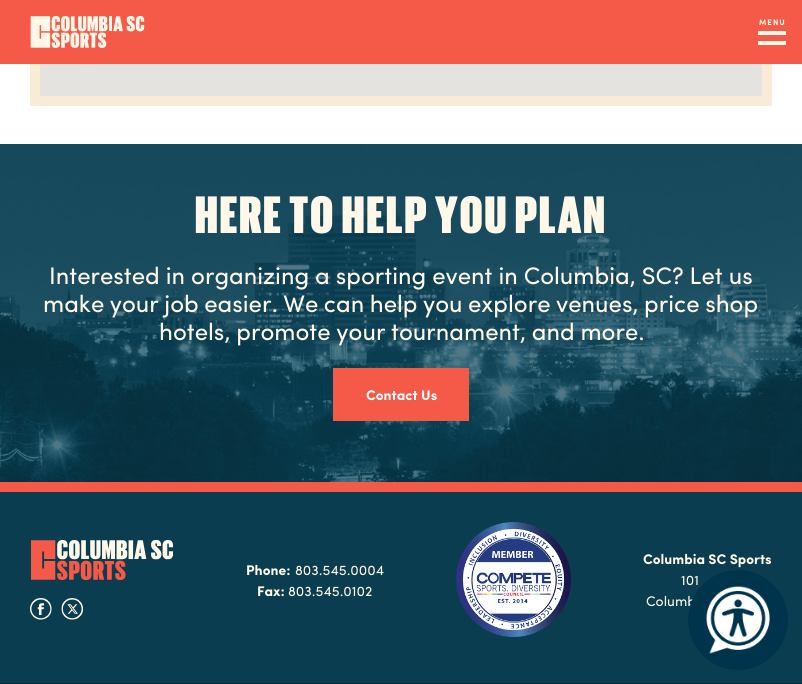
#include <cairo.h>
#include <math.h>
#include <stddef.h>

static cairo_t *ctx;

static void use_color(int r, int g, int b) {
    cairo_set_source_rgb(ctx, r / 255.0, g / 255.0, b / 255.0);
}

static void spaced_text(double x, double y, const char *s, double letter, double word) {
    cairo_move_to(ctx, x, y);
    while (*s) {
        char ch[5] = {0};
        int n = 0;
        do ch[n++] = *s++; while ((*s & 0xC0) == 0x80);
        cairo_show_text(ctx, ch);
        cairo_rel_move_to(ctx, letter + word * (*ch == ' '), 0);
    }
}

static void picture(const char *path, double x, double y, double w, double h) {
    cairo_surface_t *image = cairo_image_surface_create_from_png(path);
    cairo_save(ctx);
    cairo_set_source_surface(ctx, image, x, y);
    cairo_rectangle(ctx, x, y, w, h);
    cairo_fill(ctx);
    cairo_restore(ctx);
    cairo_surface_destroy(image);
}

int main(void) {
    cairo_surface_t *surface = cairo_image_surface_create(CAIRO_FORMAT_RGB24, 802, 684);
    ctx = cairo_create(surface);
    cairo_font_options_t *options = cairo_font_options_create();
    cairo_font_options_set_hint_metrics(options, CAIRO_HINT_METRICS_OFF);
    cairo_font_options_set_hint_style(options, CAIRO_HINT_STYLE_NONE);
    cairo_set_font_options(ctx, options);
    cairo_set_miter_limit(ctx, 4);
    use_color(255, 255, 255);
    cairo_paint(ctx);
    cairo_rectangle(ctx, 35, -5, 732, 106);
    use_color(248, 236, 215);
    cairo_set_line_width(ctx, 10);
    cairo_stroke(ctx);
    use_color(245, 89, 71);
    cairo_rectangle(ctx, 0, 0, 802, 64);
    cairo_fill(ctx);
    picture("img1.png", 30, 16, 115, 32);
    cairo_select_font_face(ctx, "Sofia", CAIRO_FONT_SLANT_NORMAL, CAIRO_FONT_WEIGHT_BOLD);
    cairo_set_font_size(ctx, 8);
    use_color(255, 247, 232);
    spaced_text(759, 25, "MENU", 1, 0);
    cairo_rectangle(ctx, 758, 31, 28, 4);
    cairo_fill(ctx);
    cairo_rectangle(ctx, 758, 41, 28, 4);
    cairo_fill(ctx);
    use_color(229, 227, 223);
    cairo_rectangle(ctx, 40, 64, 722, 32);
    cairo_fill(ctx);
    picture("img2.png", 0, 144, 802, 338);
    cairo_select_font_face(ctx, "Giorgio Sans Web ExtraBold", CAIRO_FONT_SLANT_NORMAL, CAIRO_FONT_WEIGHT_NORMAL);
    cairo_set_font_size(ctx, 54);
    use_color(255, 247, 232);
    spaced_text(195, 233, "HERE TO HELP YOU PLAN", 2, -0.5);
    cairo_select_font_face(ctx, "Sofia", CAIRO_FONT_SLANT_NORMAL, CAIRO_FONT_WEIGHT_NORMAL);
    cairo_set_font_size(ctx, 24);
    spaced_text(49, 284, "Interested in organizing a sporting event in Columbia, SC? Let us", 0, -0.25);
    spaced_text(43, 312, "make your job easier. We can help you explore venues, price shop", 0, -0.75);
    spaced_text(159, 340, "hotels, promote your tournament, and more.", 0, -0.5);
    use_color(245, 89, 71);
    cairo_rectangle(ctx, 333, 368, 136, 53);
    cairo_fill(ctx);
    cairo_select_font_face(ctx, "Sofia", CAIRO_FONT_SLANT_NORMAL, CAIRO_FONT_WEIGHT_BOLD);
    cairo_set_font_size(ctx, 14);
    use_color(255, 255, 255);
    cairo_move_to(ctx, 366, 400);
    cairo_show_text(ctx, "Contact Us");
    use_color(245, 89, 71);
    cairo_rectangle(ctx, 0, 482, 802, 10);
    cairo_fill(ctx);
    use_color(10, 61, 79);
    cairo_rectangle(ctx, 0, 492, 802, 191);
    cairo_fill(ctx);
    picture("img3.png", 31, 540, 142, 40);
    picture("img4.png", 30, 598, 22, 22);
    picture("img5.png", 61, 598, 22, 22);
    use_color(255, 247, 232);
    cairo_move_to(ctx, 246, 575);
    cairo_show_text(ctx, "Phone:");
    cairo_select_font_face(ctx, "Sofia", CAIRO_FONT_SLANT_NORMAL, CAIRO_FONT_WEIGHT_NORMAL);
    cairo_move_to(ctx, 295, 575);
    cairo_show_text(ctx, "803.545.0004");
    cairo_select_font_face(ctx, "Sofia", CAIRO_FONT_SLANT_NORMAL, CAIRO_FONT_WEIGHT_BOLD);
    cairo_move_to(ctx, 257, 596);
    cairo_show_text(ctx, "Fax:");
    cairo_select_font_face(ctx, "Sofia", CAIRO_FONT_SLANT_NORMAL, CAIRO_FONT_WEIGHT_NORMAL);
    cairo_move_to(ctx, 288, 596);
    cairo_show_text(ctx, "803.545.0102");
    picture("img6.png", 456, 522, 115, 115);
    cairo_select_font_face(ctx, "Sofia", CAIRO_FONT_SLANT_NORMAL, CAIRO_FONT_WEIGHT_BOLD);
    cairo_move_to(ctx, 643, 564);
    cairo_show_text(ctx, "Columbia SC Sports");
    cairo_select_font_face(ctx, "Sofia", CAIRO_FONT_SLANT_NORMAL, CAIRO_FONT_WEIGHT_NORMAL);
    cairo_move_to(ctx, 681, 585);
    cairo_show_text(ctx, "101");
    cairo_move_to(ctx, 646, 606);
    cairo_show_text(ctx, "Columb");
    use_color(11, 40, 50);
    cairo_rectangle(ctx, 0, 683, 802, 1);
    cairo_fill(ctx);
    use_color(0, 52, 76);
    cairo_arc(ctx, 738, 620, 50, 0, 2 * M_PI);
    cairo_fill(ctx);
    picture("img7.png", 706, 586, 64, 68);
    cairo_surface_write_to_png(surface, "result.png");
    cairo_font_options_destroy(options);
    cairo_destroy(ctx);
    cairo_surface_destroy(surface);
    return 0;
}
